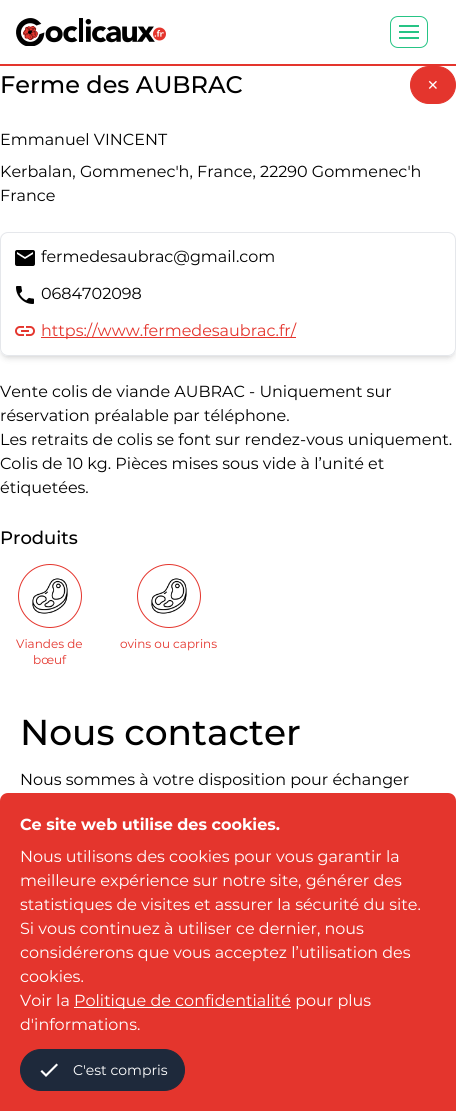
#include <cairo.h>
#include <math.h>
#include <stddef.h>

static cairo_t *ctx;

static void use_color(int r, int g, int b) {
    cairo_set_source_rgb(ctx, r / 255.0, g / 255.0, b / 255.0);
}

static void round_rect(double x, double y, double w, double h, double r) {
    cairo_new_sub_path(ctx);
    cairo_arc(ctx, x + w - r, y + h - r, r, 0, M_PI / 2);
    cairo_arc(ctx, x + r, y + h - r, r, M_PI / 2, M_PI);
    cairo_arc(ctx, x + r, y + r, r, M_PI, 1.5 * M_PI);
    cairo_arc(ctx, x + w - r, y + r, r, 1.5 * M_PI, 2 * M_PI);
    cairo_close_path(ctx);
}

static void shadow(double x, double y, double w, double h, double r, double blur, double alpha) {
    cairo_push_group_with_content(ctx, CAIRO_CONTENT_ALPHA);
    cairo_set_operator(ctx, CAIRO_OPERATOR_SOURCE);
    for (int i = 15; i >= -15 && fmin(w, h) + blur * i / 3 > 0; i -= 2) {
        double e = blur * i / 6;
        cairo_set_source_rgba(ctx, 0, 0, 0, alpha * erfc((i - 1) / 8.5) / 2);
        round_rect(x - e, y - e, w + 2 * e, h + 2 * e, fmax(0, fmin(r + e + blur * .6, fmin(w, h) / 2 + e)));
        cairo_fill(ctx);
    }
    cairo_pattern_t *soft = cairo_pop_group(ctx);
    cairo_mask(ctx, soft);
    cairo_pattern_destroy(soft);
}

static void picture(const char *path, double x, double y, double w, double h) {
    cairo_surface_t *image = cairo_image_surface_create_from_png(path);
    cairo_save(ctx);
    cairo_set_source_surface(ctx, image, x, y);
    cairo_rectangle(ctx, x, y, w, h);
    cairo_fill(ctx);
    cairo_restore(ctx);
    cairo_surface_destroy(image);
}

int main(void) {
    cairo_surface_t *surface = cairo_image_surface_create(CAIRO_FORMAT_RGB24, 456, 1111);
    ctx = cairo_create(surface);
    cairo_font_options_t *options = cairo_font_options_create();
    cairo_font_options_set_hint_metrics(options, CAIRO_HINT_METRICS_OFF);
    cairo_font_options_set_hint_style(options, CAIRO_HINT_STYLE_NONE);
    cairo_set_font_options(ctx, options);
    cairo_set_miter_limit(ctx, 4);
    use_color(255, 255, 255);
    cairo_paint(ctx);
    use_color(228, 53, 45);
    cairo_rectangle(ctx, 0, 64, 456, 2);
    cairo_fill(ctx);
    picture("img1.png", 16, 18, 150, 28);
    round_rect(390.5, 16.5, 37, 31, 7.5);
    use_color(38, 196, 133);
    cairo_set_line_width(ctx, 1);
    cairo_stroke(ctx);
    cairo_rectangle(ctx, 399, 25, 20, 2);
    cairo_fill(ctx);
    cairo_rectangle(ctx, 399, 31, 20, 2);
    cairo_fill(ctx);
    cairo_rectangle(ctx, 399, 37, 20, 2);
    cairo_fill(ctx);
    cairo_select_font_face(ctx, "Montserrat Medium", CAIRO_FONT_SLANT_NORMAL, CAIRO_FONT_WEIGHT_NORMAL);
    cairo_set_font_size(ctx, 24);
    use_color(0, 0, 0);
    cairo_move_to(ctx, 0, 93);
    cairo_show_text(ctx, "Ferme des AUBRAC");
    use_color(228, 53, 45);
    round_rect(410.5, 66.5, 45, 37, 18.5);
    cairo_fill_preserve(ctx);
    cairo_stroke(ctx);
    cairo_select_font_face(ctx, "DejaVu Sans", CAIRO_FONT_SLANT_NORMAL, CAIRO_FONT_WEIGHT_NORMAL);
    cairo_set_font_size(ctx, 14);
    use_color(255, 255, 255);
    cairo_move_to(ctx, 427, 90);
    cairo_show_text(ctx, "✕");
    cairo_select_font_face(ctx, "Montserrat", CAIRO_FONT_SLANT_NORMAL, CAIRO_FONT_WEIGHT_NORMAL);
    cairo_set_font_size(ctx, 16);
    use_color(0, 0, 0);
    cairo_move_to(ctx, 0, 145);
    cairo_show_text(ctx, "Emmanuel VINCENT");
    cairo_move_to(ctx, 0, 177);
    cairo_show_text(ctx, "Kerbalan, Gommenec'h, France, 22290 Gommenec'h");
    cairo_move_to(ctx, 0, 201);
    cairo_show_text(ctx, "France");
    cairo_save(ctx);
    cairo_set_fill_rule(ctx, CAIRO_FILL_RULE_EVEN_ODD);
    cairo_new_path(ctx);
    cairo_move_to(ctx, 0, 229);
    cairo_line_to(ctx, 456, 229);
    cairo_line_to(ctx, 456, 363);
    cairo_line_to(ctx, 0, 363);
    cairo_close_path(ctx);
    cairo_move_to(ctx, 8, 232);
    cairo_line_to(ctx, 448, 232);
    cairo_curve_to(ctx, 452.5, 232, 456, 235.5, 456, 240);
    cairo_line_to(ctx, 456, 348);
    cairo_curve_to(ctx, 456, 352.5, 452.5, 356, 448, 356);
    cairo_line_to(ctx, 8, 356);
    cairo_curve_to(ctx, 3.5, 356, 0, 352.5, 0, 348);
    cairo_line_to(ctx, 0, 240);
    cairo_curve_to(ctx, 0, 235.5, 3.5, 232, 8, 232);
    cairo_close_path(ctx);
    cairo_clip(ctx);
    use_color(0, 0, 0);
    shadow(2, 236, 452, 120, 6, 2, 0.1);
    cairo_restore(ctx);
    cairo_save(ctx);
    cairo_set_fill_rule(ctx, CAIRO_FILL_RULE_EVEN_ODD);
    cairo_new_path(ctx);
    cairo_move_to(ctx, 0, 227);
    cairo_line_to(ctx, 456, 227);
    cairo_line_to(ctx, 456, 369);
    cairo_line_to(ctx, 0, 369);
    cairo_close_path(ctx);
    cairo_move_to(ctx, 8, 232);
    cairo_line_to(ctx, 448, 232);
    cairo_curve_to(ctx, 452.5, 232, 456, 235.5, 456, 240);
    cairo_line_to(ctx, 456, 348);
    cairo_curve_to(ctx, 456, 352.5, 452.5, 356, 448, 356);
    cairo_line_to(ctx, 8, 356);
    cairo_curve_to(ctx, 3.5, 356, 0, 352.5, 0, 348);
    cairo_line_to(ctx, 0, 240);
    cairo_curve_to(ctx, 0, 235.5, 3.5, 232, 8, 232);
    cairo_close_path(ctx);
    cairo_clip(ctx);
    use_color(0, 0, 0);
    shadow(1, 237, 454, 122, 7, 3, 0.1);
    cairo_restore(ctx);
    round_rect(0.5, 232.5, 455, 123, 7.5);
    use_color(229, 231, 235);
    cairo_stroke(ctx);
    picture("img2.png", 15, 250, 20, 16);
    use_color(0, 0, 0);
    cairo_move_to(ctx, 41, 262);
    cairo_show_text(ctx, "fermedesaubrac@gmail.com");
    picture("img3.png", 16, 286, 18, 18);
    cairo_move_to(ctx, 41, 299);
    cairo_show_text(ctx, "0684702098");
    picture("img4.png", 15, 326, 20, 10);
    use_color(228, 53, 45);
    cairo_rectangle(ctx, 41, 337, 255, 1);
    cairo_fill(ctx);
    cairo_move_to(ctx, 41, 336);
    cairo_show_text(ctx, "https://www.fermedesaubrac.fr/");
    use_color(0, 0, 0);
    cairo_move_to(ctx, 0, 397);
    cairo_show_text(ctx, "Vente colis de viande AUBRAC - Uniquement sur");
    cairo_move_to(ctx, 0, 421);
    cairo_show_text(ctx, "réservation préalable par téléphone.");
    cairo_move_to(ctx, 0, 445);
    cairo_show_text(ctx, "Les retraits de colis se font sur rendez-vous uniquement.");
    cairo_move_to(ctx, 0, 469);
    cairo_show_text(ctx, "Colis de 10 kg. Pièces mises sous vide à l’unité et");
    cairo_move_to(ctx, 0, 493);
    cairo_show_text(ctx, "étiquetées.");
    cairo_select_font_face(ctx, "Montserrat Medium", CAIRO_FONT_SLANT_NORMAL, CAIRO_FONT_WEIGHT_NORMAL);
    cairo_set_font_size(ctx, 18);
    cairo_move_to(ctx, 0, 544);
    cairo_show_text(ctx, "Produits");
    cairo_new_path(ctx);
    cairo_arc(ctx, 50, 596, 31.5, 0, 2 * M_PI);
    use_color(228, 53, 45);
    cairo_stroke(ctx);
    picture("img5.png", 32, 578, 36, 36);
    cairo_select_font_face(ctx, "Montserrat", CAIRO_FONT_SLANT_NORMAL, CAIRO_FONT_WEIGHT_NORMAL);
    cairo_set_font_size(ctx, 12);
    cairo_move_to(ctx, 16, 648);
    cairo_show_text(ctx, "Viandes de");
    cairo_move_to(ctx, 33, 664);
    cairo_show_text(ctx, "bœuf");
    cairo_new_path(ctx);
    cairo_arc(ctx, 169, 596, 31.5, 0, 2 * M_PI);
    cairo_stroke(ctx);
    picture("img6.png", 151, 578, 36, 36);
    cairo_move_to(ctx, 120, 648);
    cairo_show_text(ctx, "ovins ou caprins");
    cairo_select_font_face(ctx, "Montserrat Medium", CAIRO_FONT_SLANT_NORMAL, CAIRO_FONT_WEIGHT_NORMAL);
    cairo_set_font_size(ctx, 36);
    use_color(0, 0, 0);
    cairo_move_to(ctx, 20, 745);
    cairo_show_text(ctx, "Nous contacter");
    cairo_select_font_face(ctx, "Montserrat", CAIRO_FONT_SLANT_NORMAL, CAIRO_FONT_WEIGHT_NORMAL);
    cairo_set_font_size(ctx, 16);
    cairo_move_to(ctx, 20, 785);
    cairo_show_text(ctx, "Nous sommes à votre disposition pour échanger");
    use_color(228, 53, 45);
    cairo_new_path(ctx);
    cairo_move_to(ctx, 8, 793);
    cairo_line_to(ctx, 448, 793);
    cairo_curve_to(ctx, 452.5, 793, 456, 796.5, 456, 801);
    cairo_line_to(ctx, 456, 1111);
    cairo_line_to(ctx, 0, 1111);
    cairo_line_to(ctx, 0, 801);
    cairo_curve_to(ctx, 0, 796.5, 3.5, 793, 8, 793);
    cairo_close_path(ctx);
    cairo_fill(ctx);
    cairo_select_font_face(ctx, "Montserrat", CAIRO_FONT_SLANT_NORMAL, CAIRO_FONT_WEIGHT_BOLD);
    use_color(255, 255, 255);
    cairo_move_to(ctx, 20, 830);
    cairo_show_text(ctx, "Ce site web utilise des cookies.");
    cairo_select_font_face(ctx, "Montserrat", CAIRO_FONT_SLANT_NORMAL, CAIRO_FONT_WEIGHT_NORMAL);
    cairo_move_to(ctx, 20, 862);
    cairo_show_text(ctx, "Nous utilisons des cookies pour vous garantir la");
    cairo_move_to(ctx, 20, 886);
    cairo_show_text(ctx, "meilleure expérience sur notre site, générer des");
    cairo_move_to(ctx, 20, 910);
    cairo_show_text(ctx, "statistiques de visites et assurer la sécurité du site.");
    cairo_move_to(ctx, 20, 934);
    cairo_show_text(ctx, "Si vous continuez à utiliser ce dernier, nous");
    cairo_move_to(ctx, 20, 958);
    cairo_show_text(ctx, "considérerons que vous acceptez l’utilisation des");
    cairo_move_to(ctx, 20, 982);
    cairo_show_text(ctx, "cookies.");
    cairo_move_to(ctx, 20, 1006);
    cairo_show_text(ctx, "Voir la");
    cairo_rectangle(ctx, 74, 1007, 217, 1);
    cairo_fill(ctx);
    cairo_move_to(ctx, 74, 1006);
    cairo_show_text(ctx, "Politique de confidentialité pour plus");
    cairo_move_to(ctx, 20, 1030);
    cairo_show_text(ctx, "d'informations.");
    use_color(30, 41, 59);
    round_rect(20.5, 1049.5, 164, 41, 20.5);
    cairo_fill_preserve(ctx);
    cairo_stroke(ctx);
    use_color(255, 255, 255);
    cairo_new_path(ctx);
    cairo_move_to(ctx, 46, 1074);
    cairo_line_to(ctx, 56.5, 1063.5);
    cairo_line_to(ctx, 58, 1065);
    cairo_line_to(ctx, 46, 1077);
    cairo_line_to(ctx, 40.5, 1071.5);
    cairo_line_to(ctx, 42, 1070);
    cairo_close_path(ctx);
    cairo_fill(ctx);
    cairo_set_font_size(ctx, 14);
    cairo_move_to(ctx, 73, 1075);
    cairo_show_text(ctx, "C'est compris");
    cairo_surface_write_to_png(surface, "result.png");
    cairo_font_options_destroy(options);
    cairo_destroy(ctx);
    cairo_surface_destroy(surface);
    return 0;
}
